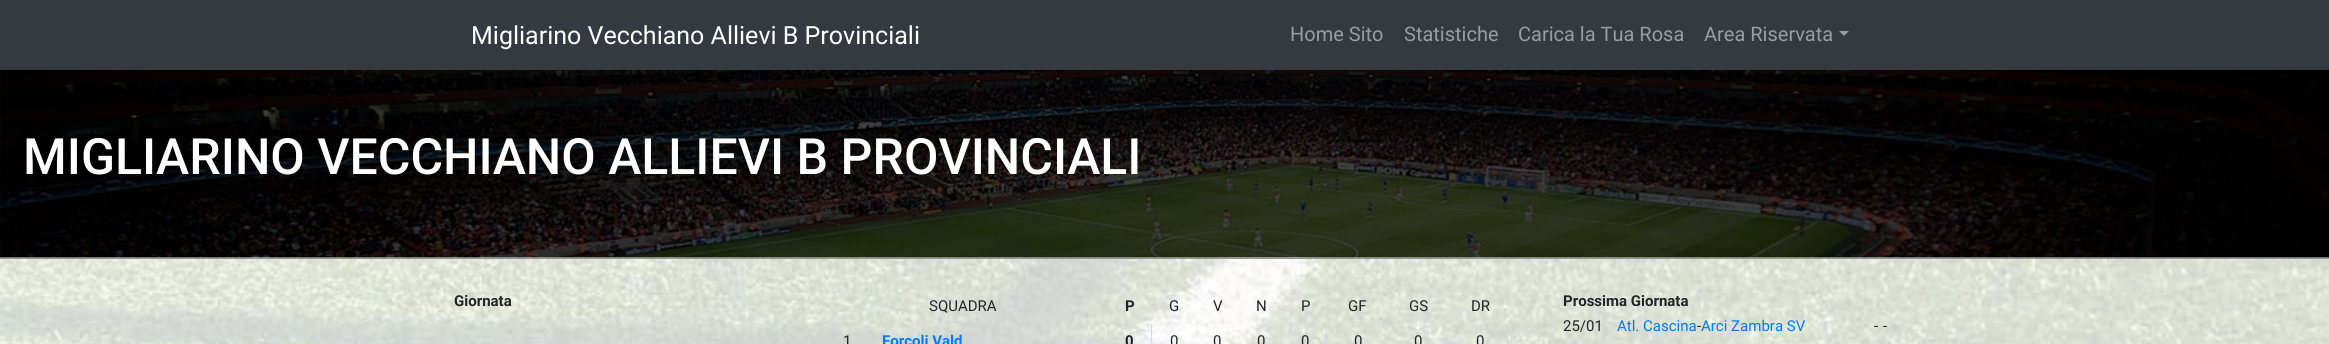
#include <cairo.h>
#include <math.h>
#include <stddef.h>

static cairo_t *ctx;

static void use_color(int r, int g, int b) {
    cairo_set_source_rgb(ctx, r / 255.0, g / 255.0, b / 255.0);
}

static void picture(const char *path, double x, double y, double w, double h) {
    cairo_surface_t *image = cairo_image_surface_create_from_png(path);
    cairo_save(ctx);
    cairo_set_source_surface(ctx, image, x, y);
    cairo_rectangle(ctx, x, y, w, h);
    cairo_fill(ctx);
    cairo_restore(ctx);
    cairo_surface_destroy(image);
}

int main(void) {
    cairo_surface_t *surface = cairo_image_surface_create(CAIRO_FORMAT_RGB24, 2329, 344);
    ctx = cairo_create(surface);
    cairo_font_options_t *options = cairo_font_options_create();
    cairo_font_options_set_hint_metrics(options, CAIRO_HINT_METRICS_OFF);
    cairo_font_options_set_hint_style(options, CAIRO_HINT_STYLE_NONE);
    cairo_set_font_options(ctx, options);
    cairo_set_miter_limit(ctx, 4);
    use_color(255, 255, 255);
    cairo_paint(ctx);
    picture("img1.png", 0, 257, 2329, 87);
    use_color(52, 58, 64);
    cairo_rectangle(ctx, 0, 0, 2329, 70);
    cairo_fill(ctx);
    cairo_select_font_face(ctx, "Roboto", CAIRO_FONT_SLANT_NORMAL, CAIRO_FONT_WEIGHT_NORMAL);
    cairo_set_font_size(ctx, 25);
    use_color(255, 255, 255);
    cairo_move_to(ctx, 471, 44);
    cairo_show_text(ctx, "Migliarino Vecchiano Allievi B Provinciali");
    cairo_set_font_size(ctx, 20);
    use_color(154, 157, 160);
    cairo_move_to(ctx, 1290, 41);
    cairo_show_text(ctx, "Home Sito");
    cairo_move_to(ctx, 1404, 41);
    cairo_show_text(ctx, "Statistiche");
    cairo_move_to(ctx, 1518, 41);
    cairo_show_text(ctx, "Carica la Tua Rosa");
    cairo_move_to(ctx, 1704, 41);
    cairo_show_text(ctx, "Area Riservata");
    cairo_new_path(ctx);
    cairo_move_to(ctx, 1839, 31);
    cairo_line_to(ctx, 1849, 31);
    cairo_line_to(ctx, 1844, 36);
    cairo_close_path(ctx);
    cairo_fill(ctx);
    picture("img2.png", 0, 70, 2329, 188);
    cairo_select_font_face(ctx, "Roboto Medium", CAIRO_FONT_SLANT_NORMAL, CAIRO_FONT_WEIGHT_NORMAL);
    cairo_set_font_size(ctx, 50);
    use_color(255, 255, 255);
    cairo_move_to(ctx, 23, 174);
    cairo_show_text(ctx, "MIGLIARINO VECCHIANO ALLIEVI B PROVINCIALI");
    use_color(153, 153, 153);
    cairo_rectangle(ctx, 0, 258, 2329, 1);
    cairo_fill(ctx);
    cairo_select_font_face(ctx, "Roboto", CAIRO_FONT_SLANT_NORMAL, CAIRO_FONT_WEIGHT_BOLD);
    cairo_set_font_size(ctx, 15);
    use_color(33, 37, 41);
    cairo_move_to(ctx, 454, 306);
    cairo_show_text(ctx, "Giornata");
    cairo_select_font_face(ctx, "Roboto", CAIRO_FONT_SLANT_NORMAL, CAIRO_FONT_WEIGHT_NORMAL);
    cairo_move_to(ctx, 929, 311);
    cairo_show_text(ctx, "SQUADRA");
    cairo_select_font_face(ctx, "Roboto", CAIRO_FONT_SLANT_NORMAL, CAIRO_FONT_WEIGHT_BOLD);
    cairo_move_to(ctx, 1125, 311);
    cairo_show_text(ctx, "P");
    cairo_select_font_face(ctx, "Roboto", CAIRO_FONT_SLANT_NORMAL, CAIRO_FONT_WEIGHT_NORMAL);
    cairo_move_to(ctx, 1169, 311);
    cairo_show_text(ctx, "G");
    cairo_move_to(ctx, 1213, 311);
    cairo_show_text(ctx, "V");
    cairo_move_to(ctx, 1256, 311);
    cairo_show_text(ctx, "N");
    cairo_move_to(ctx, 1301, 311);
    cairo_show_text(ctx, "P");
    cairo_move_to(ctx, 1348, 311);
    cairo_show_text(ctx, "GF");
    cairo_move_to(ctx, 1409, 311);
    cairo_show_text(ctx, "GS");
    cairo_move_to(ctx, 1471, 311);
    cairo_show_text(ctx, "DR");
    cairo_move_to(ctx, 843, 346);
    cairo_show_text(ctx, "1");
    use_color(216, 216, 216);
    cairo_rectangle(ctx, 1108, 324, 1, 20);
    cairo_fill(ctx);
    cairo_select_font_face(ctx, "Roboto", CAIRO_FONT_SLANT_NORMAL, CAIRO_FONT_WEIGHT_BOLD);
    use_color(0, 123, 255);
    cairo_move_to(ctx, 882, 346);
    cairo_show_text(ctx, "Forcoli Vald");
    use_color(216, 216, 216);
    cairo_rectangle(ctx, 1151, 324, 1, 20);
    cairo_fill(ctx);
    use_color(33, 37, 41);
    cairo_move_to(ctx, 1125, 346);
    cairo_show_text(ctx, "0");
    cairo_select_font_face(ctx, "Roboto", CAIRO_FONT_SLANT_NORMAL, CAIRO_FONT_WEIGHT_NORMAL);
    cairo_move_to(ctx, 1170, 346);
    cairo_show_text(ctx, "0");
    cairo_move_to(ctx, 1213, 346);
    cairo_show_text(ctx, "0");
    cairo_move_to(ctx, 1257, 346);
    cairo_show_text(ctx, "0");
    use_color(216, 216, 216);
    cairo_rectangle(ctx, 1326, 324, 1, 20);
    cairo_fill(ctx);
    use_color(33, 37, 41);
    cairo_move_to(ctx, 1301, 346);
    cairo_show_text(ctx, "0");
    cairo_move_to(ctx, 1354, 346);
    cairo_show_text(ctx, "0");
    cairo_move_to(ctx, 1414, 346);
    cairo_show_text(ctx, "0");
    use_color(216, 216, 216);
    cairo_rectangle(ctx, 1511, 324, 1, 20);
    cairo_fill(ctx);
    use_color(33, 37, 41);
    cairo_move_to(ctx, 1476, 346);
    cairo_show_text(ctx, "0");
    cairo_select_font_face(ctx, "Roboto", CAIRO_FONT_SLANT_NORMAL, CAIRO_FONT_WEIGHT_BOLD);
    cairo_move_to(ctx, 1563, 306);
    cairo_show_text(ctx, "Prossima Giornata");
    cairo_select_font_face(ctx, "Roboto", CAIRO_FONT_SLANT_NORMAL, CAIRO_FONT_WEIGHT_NORMAL);
    cairo_move_to(ctx, 1563, 331);
    cairo_show_text(ctx, "25/01");
    use_color(0, 123, 255);
    cairo_move_to(ctx, 1617, 331);
    cairo_show_text(ctx, "Atl. Cascina");
    use_color(33, 37, 41);
    cairo_move_to(ctx, 1697, 331);
    cairo_show_text(ctx, "-");
    use_color(0, 123, 255);
    cairo_move_to(ctx, 1701, 331);
    cairo_show_text(ctx, "Arci Zambra SV");
    use_color(33, 37, 41);
    cairo_move_to(ctx, 1874, 331);
    cairo_show_text(ctx, "-");
    cairo_move_to(ctx, 1883, 331);
    cairo_show_text(ctx, "-");
    cairo_surface_write_to_png(surface, "result.png");
    cairo_font_options_destroy(options);
    cairo_destroy(ctx);
    cairo_surface_destroy(surface);
    return 0;
}
